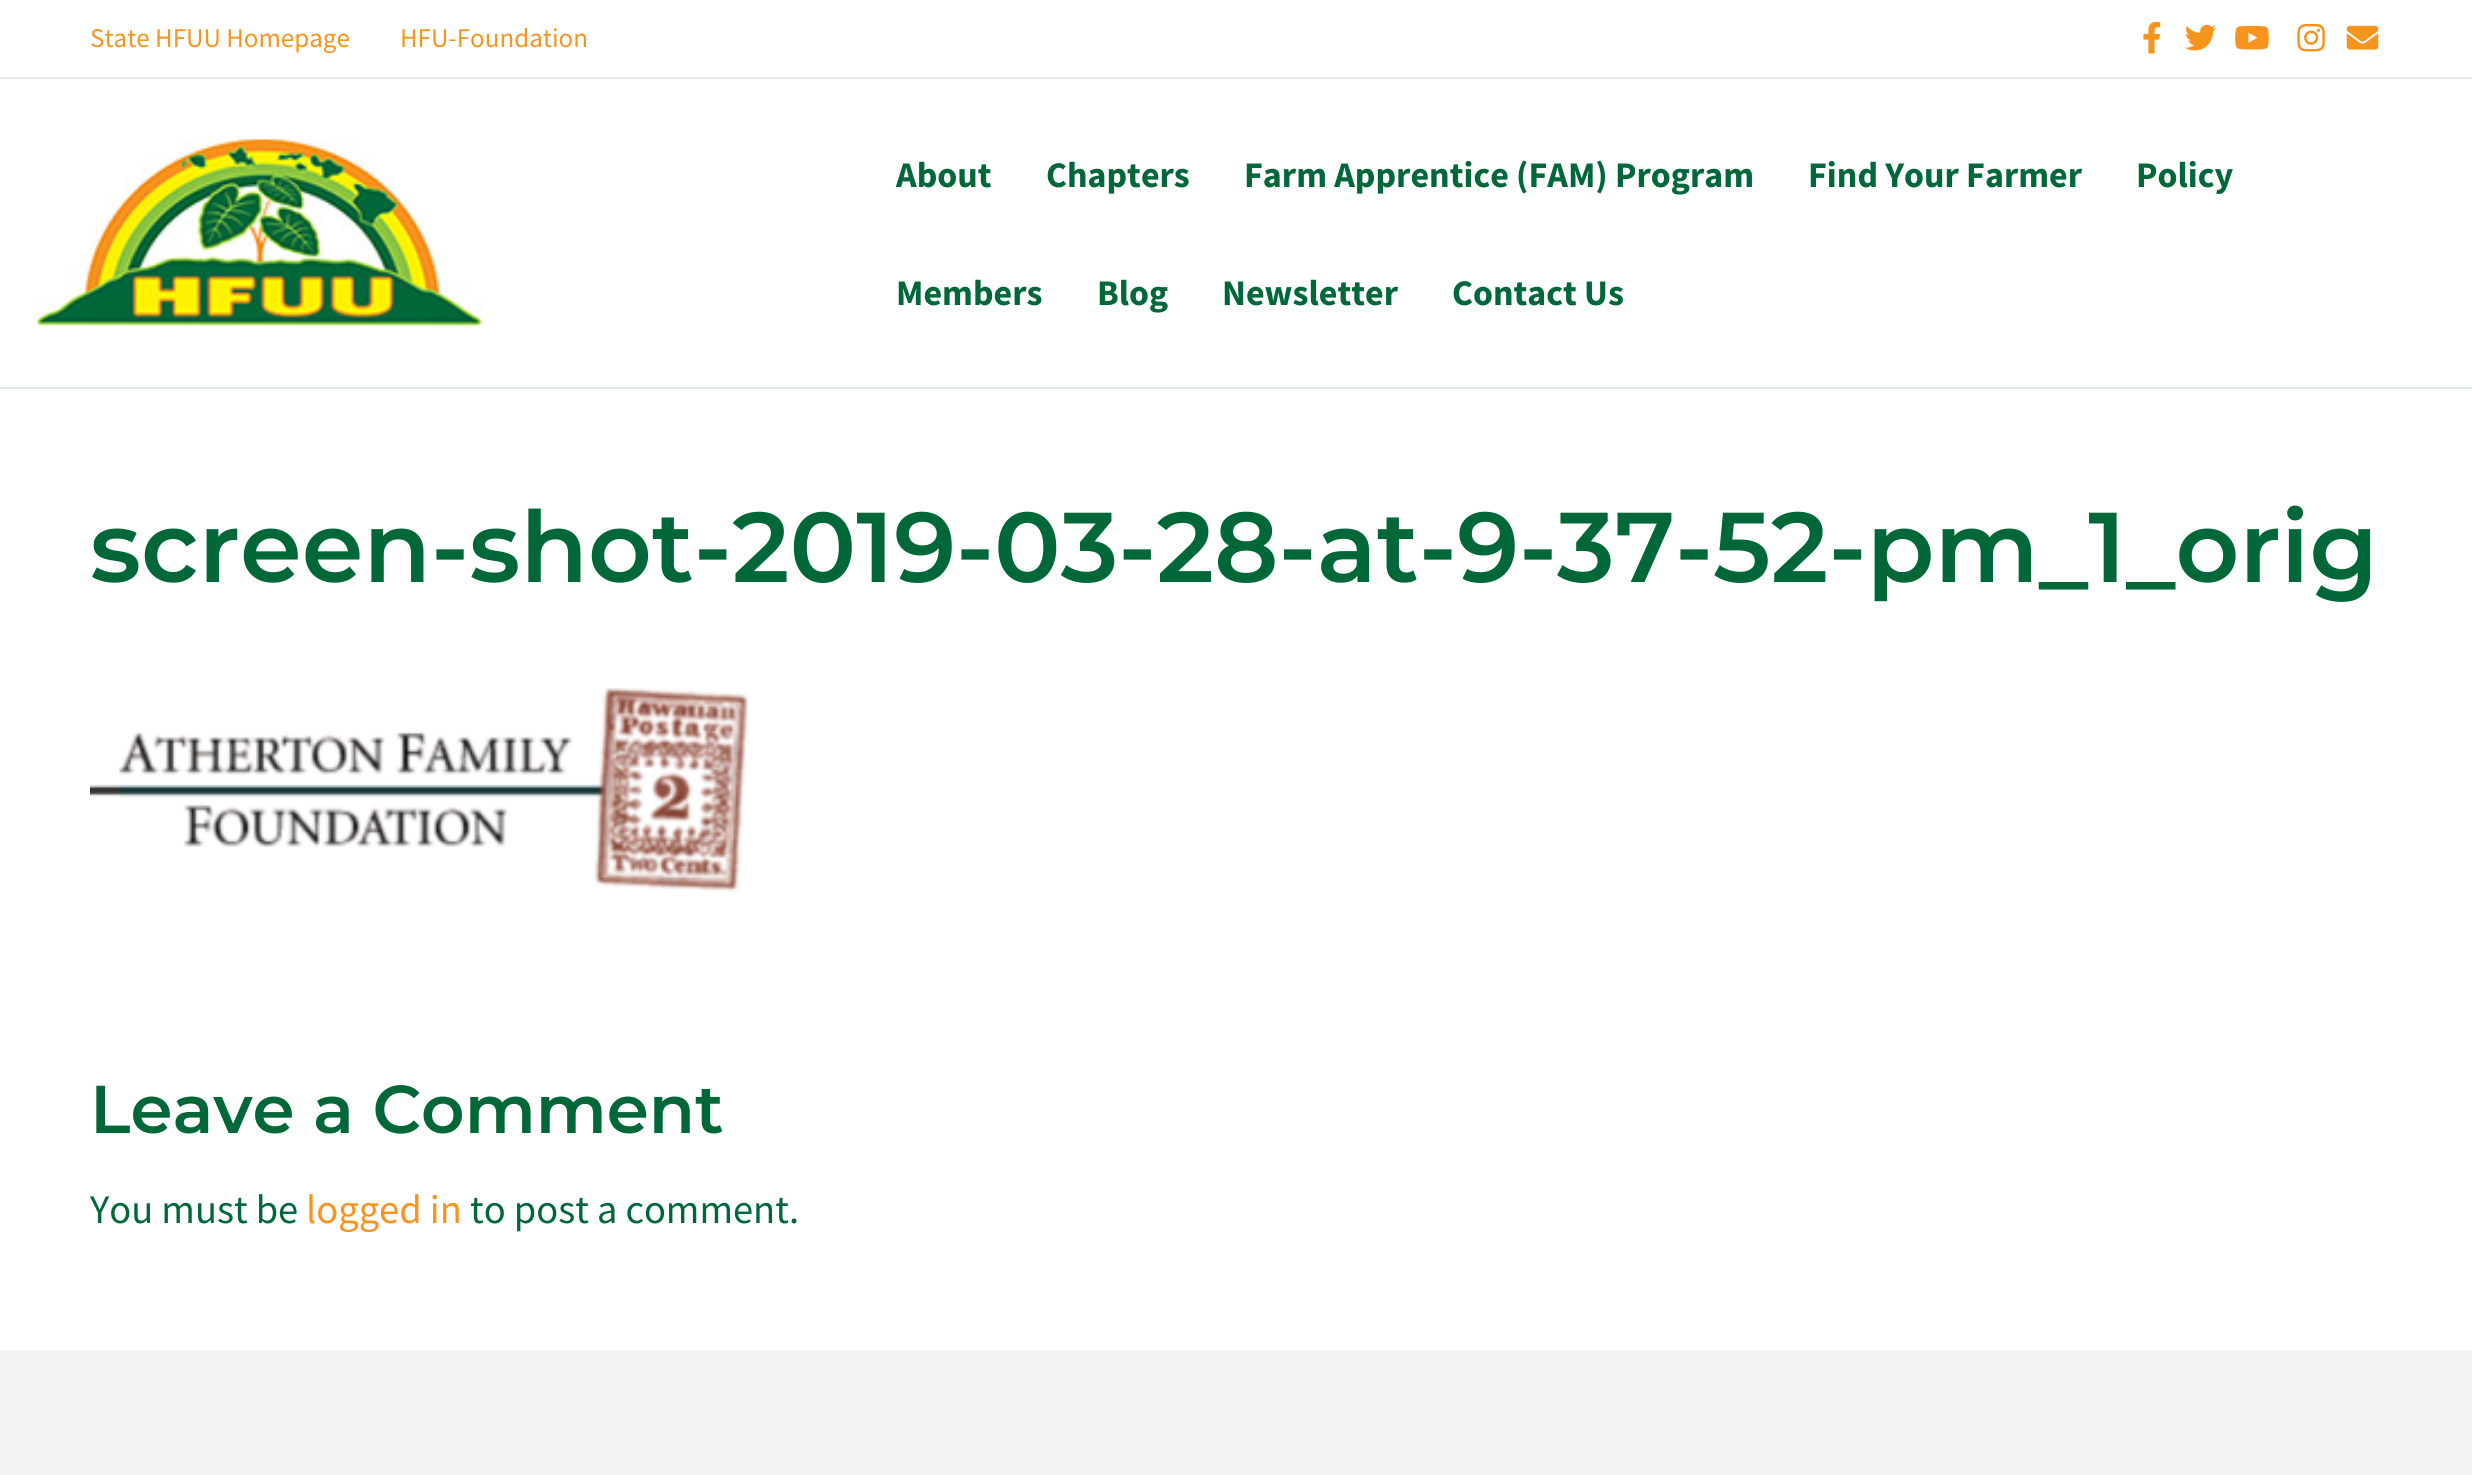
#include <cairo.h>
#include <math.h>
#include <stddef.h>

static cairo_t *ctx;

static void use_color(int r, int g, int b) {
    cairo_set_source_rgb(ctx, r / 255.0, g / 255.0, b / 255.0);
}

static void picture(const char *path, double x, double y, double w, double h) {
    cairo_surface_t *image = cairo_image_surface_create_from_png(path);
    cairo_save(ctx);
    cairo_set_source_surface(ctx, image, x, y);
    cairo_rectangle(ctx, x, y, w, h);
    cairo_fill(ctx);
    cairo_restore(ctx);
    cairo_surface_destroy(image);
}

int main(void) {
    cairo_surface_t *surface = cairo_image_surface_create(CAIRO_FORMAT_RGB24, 2472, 1475);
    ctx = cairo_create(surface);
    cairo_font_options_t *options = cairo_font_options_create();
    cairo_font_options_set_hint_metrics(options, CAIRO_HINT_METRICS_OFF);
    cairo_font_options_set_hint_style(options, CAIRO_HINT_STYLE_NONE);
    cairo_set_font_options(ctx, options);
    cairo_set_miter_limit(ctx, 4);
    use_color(242, 242, 242);
    cairo_paint(ctx);
    use_color(255, 255, 255);
    cairo_rectangle(ctx, 0, 0, 2472, 77);
    cairo_fill(ctx);
    use_color(230, 230, 230);
    cairo_rectangle(ctx, 0, 77, 2472, 2);
    cairo_fill(ctx);
    cairo_select_font_face(ctx, "Source Sans Pro", CAIRO_FONT_SLANT_NORMAL, CAIRO_FONT_WEIGHT_NORMAL);
    cairo_set_font_size(ctx, 27);
    use_color(247, 148, 29);
    cairo_move_to(ctx, 90, 47);
    cairo_show_text(ctx, "State HFUU Homepage");
    cairo_move_to(ctx, 400, 47);
    cairo_show_text(ctx, "HFU-Foundation");
    picture("img1.png", 2143, 21, 18, 33);
    picture("img2.png", 2185, 24, 31, 27);
    picture("img3.png", 2235, 25, 34, 25);
    picture("img4.png", 2297, 23, 28, 29);
    picture("img5.png", 2346, 25, 33, 25);
    use_color(255, 255, 255);
    cairo_rectangle(ctx, 0, 79, 2472, 308);
    cairo_fill(ctx);
    use_color(222, 235, 229);
    cairo_rectangle(ctx, 0, 387, 2472, 2);
    cairo_fill(ctx);
    picture("img6.png", 34, 139, 450, 188);
    cairo_select_font_face(ctx, "Source Sans Pro", CAIRO_FONT_SLANT_NORMAL, CAIRO_FONT_WEIGHT_BOLD);
    cairo_set_font_size(ctx, 36);
    use_color(0, 104, 56);
    cairo_move_to(ctx, 896, 187);
    cairo_show_text(ctx, "About");
    cairo_move_to(ctx, 1046, 187);
    cairo_show_text(ctx, "Chapters");
    cairo_move_to(ctx, 1244, 187);
    cairo_show_text(ctx, "Farm Apprentice (FAM) Program");
    cairo_move_to(ctx, 1808, 187);
    cairo_show_text(ctx, "Find Your Farmer");
    cairo_move_to(ctx, 2136, 187);
    cairo_show_text(ctx, "Policy");
    cairo_move_to(ctx, 896, 305);
    cairo_show_text(ctx, "Members");
    cairo_move_to(ctx, 1097, 305);
    cairo_show_text(ctx, "Blog");
    cairo_move_to(ctx, 1222, 305);
    cairo_show_text(ctx, "Newsletter");
    cairo_move_to(ctx, 1452, 305);
    cairo_show_text(ctx, "Contact Us");
    use_color(255, 255, 255);
    cairo_rectangle(ctx, 0, 389, 2472, 961);
    cairo_fill(ctx);
    cairo_select_font_face(ctx, "Montserrat Thin", CAIRO_FONT_SLANT_NORMAL, CAIRO_FONT_WEIGHT_NORMAL);
    cairo_set_font_size(ctx, 99);
    use_color(0, 104, 56);
    cairo_move_to(ctx, 90, 582);
    cairo_show_text(ctx, "screen-shot-2019-03-28-at-9-37-52-pm_1_orig");
    picture("img7.png", 90, 688, 658, 204);
    cairo_set_font_size(ctx, 67.5);
    cairo_move_to(ctx, 90, 1133);
    cairo_show_text(ctx, "Leave a Comment");
    cairo_select_font_face(ctx, "Source Sans Pro", CAIRO_FONT_SLANT_NORMAL, CAIRO_FONT_WEIGHT_NORMAL);
    cairo_set_font_size(ctx, 40.5);
    cairo_move_to(ctx, 90, 1223);
    cairo_show_text(ctx, "You must be");
    use_color(247, 148, 29);
    cairo_move_to(ctx, 306, 1223);
    cairo_show_text(ctx, "logged in");
    use_color(0, 104, 56);
    cairo_move_to(ctx, 470, 1223);
    cairo_show_text(ctx, "to post a comment.");
    cairo_surface_write_to_png(surface, "result.png");
    cairo_font_options_destroy(options);
    cairo_destroy(ctx);
    cairo_surface_destroy(surface);
    return 0;
}
